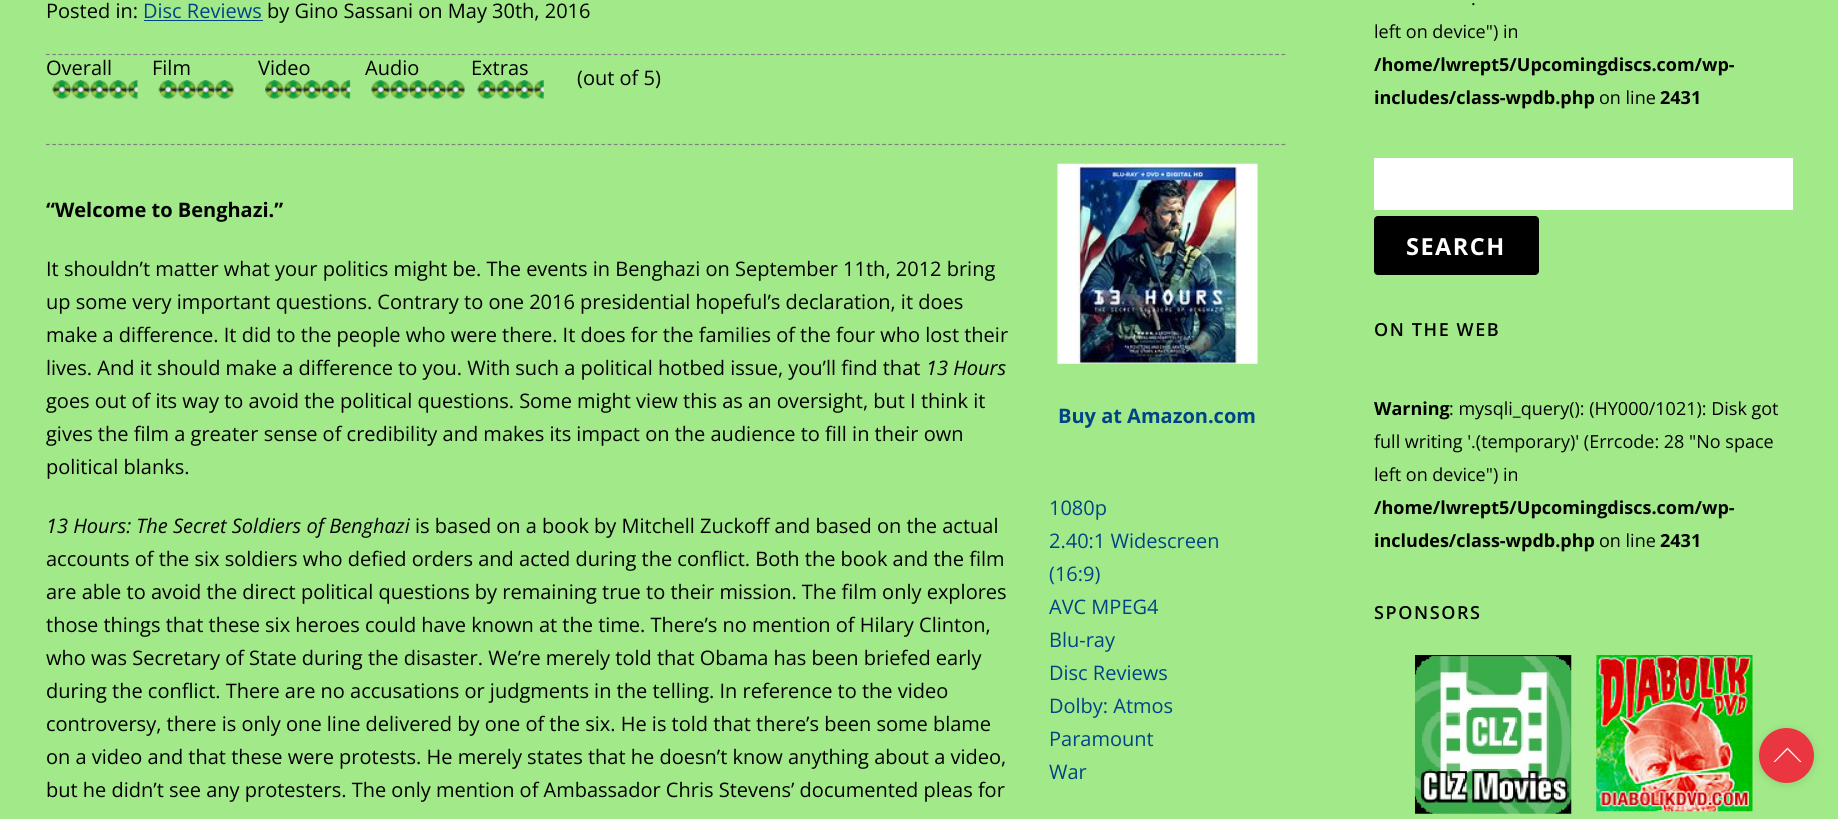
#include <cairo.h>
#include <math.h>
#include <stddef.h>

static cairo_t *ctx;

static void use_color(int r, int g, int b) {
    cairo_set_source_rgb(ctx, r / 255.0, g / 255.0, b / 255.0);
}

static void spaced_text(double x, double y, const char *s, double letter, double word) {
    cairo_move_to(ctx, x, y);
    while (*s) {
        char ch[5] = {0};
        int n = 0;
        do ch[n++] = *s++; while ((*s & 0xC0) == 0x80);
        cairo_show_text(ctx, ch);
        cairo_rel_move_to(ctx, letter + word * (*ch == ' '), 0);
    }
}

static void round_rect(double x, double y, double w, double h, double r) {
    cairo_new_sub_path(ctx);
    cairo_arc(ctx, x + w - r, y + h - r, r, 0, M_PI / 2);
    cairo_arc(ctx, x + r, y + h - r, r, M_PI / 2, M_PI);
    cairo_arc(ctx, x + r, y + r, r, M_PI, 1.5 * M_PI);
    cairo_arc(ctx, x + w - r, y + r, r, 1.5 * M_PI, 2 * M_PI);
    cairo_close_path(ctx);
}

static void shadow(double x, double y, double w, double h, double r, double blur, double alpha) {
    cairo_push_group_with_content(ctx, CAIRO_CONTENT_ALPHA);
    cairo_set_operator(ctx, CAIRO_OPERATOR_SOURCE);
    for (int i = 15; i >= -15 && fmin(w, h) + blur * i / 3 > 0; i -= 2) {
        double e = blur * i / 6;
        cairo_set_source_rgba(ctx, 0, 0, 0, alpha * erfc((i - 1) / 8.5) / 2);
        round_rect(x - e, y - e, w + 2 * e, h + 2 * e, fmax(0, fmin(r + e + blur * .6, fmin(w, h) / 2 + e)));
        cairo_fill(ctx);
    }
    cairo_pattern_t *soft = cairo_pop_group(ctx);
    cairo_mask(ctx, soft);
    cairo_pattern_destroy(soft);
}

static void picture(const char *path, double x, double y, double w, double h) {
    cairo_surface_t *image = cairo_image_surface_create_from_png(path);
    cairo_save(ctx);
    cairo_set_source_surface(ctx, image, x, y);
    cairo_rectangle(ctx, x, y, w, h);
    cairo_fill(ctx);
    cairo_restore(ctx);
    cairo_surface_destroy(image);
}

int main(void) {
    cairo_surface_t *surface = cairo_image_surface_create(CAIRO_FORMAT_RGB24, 1838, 819);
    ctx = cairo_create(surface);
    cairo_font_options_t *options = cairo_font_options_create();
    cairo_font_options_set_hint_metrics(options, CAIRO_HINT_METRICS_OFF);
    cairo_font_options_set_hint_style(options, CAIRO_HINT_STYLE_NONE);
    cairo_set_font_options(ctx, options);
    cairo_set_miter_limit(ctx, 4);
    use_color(162, 234, 137);
    cairo_paint(ctx);
    cairo_select_font_face(ctx, "Open Sans", CAIRO_FONT_SLANT_NORMAL, CAIRO_FONT_WEIGHT_NORMAL);
    cairo_set_font_size(ctx, 20);
    use_color(0, 0, 0);
    cairo_move_to(ctx, 46, 18);
    cairo_show_text(ctx, "Posted in:");
    use_color(0, 68, 136);
    cairo_move_to(ctx, 143, 18);
    cairo_show_text(ctx, "Disc Reviews");
    cairo_rectangle(ctx, 144, 20, 119, 1);
    cairo_fill(ctx);
    use_color(0, 0, 0);
    cairo_move_to(ctx, 267, 18);
    cairo_show_text(ctx, "by Gino Sassani on May 30th, 2016");
    cairo_new_path(ctx);
    cairo_move_to(ctx, 46, 54.5);
    cairo_line_to(ctx, 1286, 54.5);
    use_color(128, 128, 128);
    cairo_set_line_width(ctx, 1.2);
    cairo_set_dash(ctx, (double[]){3.75, 2.49}, 2, 0);
    cairo_stroke(ctx);
    cairo_new_path(ctx);
    cairo_move_to(ctx, 46, 144.5);
    cairo_line_to(ctx, 1286, 144.5);
    cairo_stroke(ctx);
    use_color(0, 0, 0);
    cairo_move_to(ctx, 46, 75);
    cairo_show_text(ctx, "Overall");
    picture("img1.png", 52, 80, 86, 19);
    cairo_move_to(ctx, 152, 75);
    cairo_show_text(ctx, "Film");
    picture("img2.png", 158, 80, 76, 19);
    cairo_move_to(ctx, 258, 75);
    cairo_show_text(ctx, "Video");
    picture("img3.png", 265, 80, 86, 19);
    cairo_move_to(ctx, 365, 75);
    cairo_show_text(ctx, "Audio");
    picture("img4.png", 371, 80, 94, 19);
    cairo_move_to(ctx, 471, 75);
    cairo_show_text(ctx, "Extras");
    picture("img5.png", 477, 80, 67, 19);
    cairo_move_to(ctx, 577, 85);
    cairo_show_text(ctx, "(out of 5)");
    cairo_select_font_face(ctx, "Open Sans", CAIRO_FONT_SLANT_NORMAL, CAIRO_FONT_WEIGHT_BOLD);
    cairo_move_to(ctx, 46, 217);
    cairo_show_text(ctx, "“Welcome to Benghazi.”");
    cairo_select_font_face(ctx, "Open Sans", CAIRO_FONT_SLANT_NORMAL, CAIRO_FONT_WEIGHT_NORMAL);
    cairo_move_to(ctx, 46, 276);
    cairo_show_text(ctx, "It shouldn’t matter what your politics might be. The events in Benghazi on September 11th, 2012 bring");
    cairo_move_to(ctx, 46, 309);
    cairo_show_text(ctx, "up some very important questions. Contrary to one 2016 presidential hopeful’s declaration, it does");
    cairo_move_to(ctx, 46, 342);
    cairo_show_text(ctx, "make a difference. It did to the people who were there. It does for the families of the four who lost their");
    cairo_move_to(ctx, 46, 375);
    cairo_show_text(ctx, "lives. And it should make a difference to you. With such a political hotbed issue, you’ll find that");
    cairo_select_font_face(ctx, "Open Sans", CAIRO_FONT_SLANT_ITALIC, CAIRO_FONT_WEIGHT_NORMAL);
    cairo_move_to(ctx, 926, 375);
    cairo_show_text(ctx, "13 Hours");
    cairo_select_font_face(ctx, "Open Sans", CAIRO_FONT_SLANT_NORMAL, CAIRO_FONT_WEIGHT_NORMAL);
    cairo_move_to(ctx, 46, 408);
    cairo_show_text(ctx, "goes out of its way to avoid the political questions. Some might view this as an oversight, but I think it");
    cairo_move_to(ctx, 46, 441);
    cairo_show_text(ctx, "gives the film a greater sense of credibility and makes its impact on the audience to fill in their own");
    cairo_move_to(ctx, 46, 474);
    cairo_show_text(ctx, "political blanks.");
    cairo_select_font_face(ctx, "Open Sans", CAIRO_FONT_SLANT_ITALIC, CAIRO_FONT_WEIGHT_NORMAL);
    cairo_move_to(ctx, 46, 533);
    cairo_show_text(ctx, "13 Hours: The Secret Soldiers of Benghazi");
    cairo_select_font_face(ctx, "Open Sans", CAIRO_FONT_SLANT_NORMAL, CAIRO_FONT_WEIGHT_NORMAL);
    cairo_move_to(ctx, 415, 533);
    cairo_show_text(ctx, "is based on a book by Mitchell Zuckoff and based on the actual");
    cairo_move_to(ctx, 46, 566);
    cairo_show_text(ctx, "accounts of the six soldiers who defied orders and acted during the conflict. Both the book and the film");
    cairo_move_to(ctx, 46, 599);
    cairo_show_text(ctx, "are able to avoid the direct political questions by remaining true to their mission. The film only explores");
    cairo_move_to(ctx, 46, 632);
    cairo_show_text(ctx, "those things that these six heroes could have known at the time. There’s no mention of Hilary Clinton,");
    cairo_move_to(ctx, 46, 665);
    cairo_show_text(ctx, "who was Secretary of State during the disaster. We’re merely told that Obama has been briefed early");
    cairo_move_to(ctx, 46, 698);
    cairo_show_text(ctx, "during the conflict. There are no accusations or judgments in the telling. In reference to the video");
    cairo_move_to(ctx, 46, 731);
    cairo_show_text(ctx, "controversy, there is only one line delivered by one of the six. He is told that there’s been some blame");
    cairo_move_to(ctx, 46, 764);
    cairo_show_text(ctx, "on a video and that these were protests. He merely states that he doesn’t know anything about a video,");
    cairo_move_to(ctx, 46, 797);
    cairo_show_text(ctx, "but he didn’t see any protesters. The only mention of Ambassador Chris Stevens’ documented pleas for");
    picture("img6.png", 1057, 163, 201, 201);
    cairo_select_font_face(ctx, "Open Sans", CAIRO_FONT_SLANT_NORMAL, CAIRO_FONT_WEIGHT_BOLD);
    use_color(0, 68, 136);
    cairo_move_to(ctx, 1058, 423);
    cairo_show_text(ctx, "Buy at Amazon.com");
    cairo_select_font_face(ctx, "Open Sans", CAIRO_FONT_SLANT_NORMAL, CAIRO_FONT_WEIGHT_NORMAL);
    cairo_move_to(ctx, 1049, 515);
    cairo_show_text(ctx, "1080p");
    cairo_move_to(ctx, 1049, 548);
    cairo_show_text(ctx, "2.40:1 Widescreen");
    cairo_move_to(ctx, 1049, 581);
    cairo_show_text(ctx, "(16:9)");
    cairo_move_to(ctx, 1049, 614);
    cairo_show_text(ctx, "AVC MPEG4");
    cairo_move_to(ctx, 1049, 647);
    cairo_show_text(ctx, "Blu-ray");
    cairo_move_to(ctx, 1049, 680);
    cairo_show_text(ctx, "Disc Reviews");
    cairo_move_to(ctx, 1049, 713);
    cairo_show_text(ctx, "Dolby: Atmos");
    cairo_move_to(ctx, 1049, 746);
    cairo_show_text(ctx, "Paramount");
    cairo_move_to(ctx, 1049, 779);
    cairo_show_text(ctx, "War");
    cairo_set_font_size(ctx, 18);
    use_color(0, 0, 0);
    cairo_move_to(ctx, 1471, 5);
    cairo_show_text(ctx, ".");
    cairo_move_to(ctx, 1374, 38);
    cairo_show_text(ctx, "left on device\") in");
    cairo_select_font_face(ctx, "Open Sans", CAIRO_FONT_SLANT_NORMAL, CAIRO_FONT_WEIGHT_BOLD);
    cairo_move_to(ctx, 1374, 71);
    cairo_show_text(ctx, "/home/lwrept5/Upcomingdiscs.com/wp-");
    cairo_move_to(ctx, 1374, 104);
    cairo_show_text(ctx, "includes/class-wpdb.php");
    cairo_select_font_face(ctx, "Open Sans", CAIRO_FONT_SLANT_NORMAL, CAIRO_FONT_WEIGHT_NORMAL);
    cairo_move_to(ctx, 1599, 104);
    cairo_show_text(ctx, "on line");
    cairo_select_font_face(ctx, "Open Sans", CAIRO_FONT_SLANT_NORMAL, CAIRO_FONT_WEIGHT_BOLD);
    cairo_move_to(ctx, 1660, 104);
    cairo_show_text(ctx, "2431");
    use_color(255, 255, 255);
    cairo_rectangle(ctx, 1374, 158, 419, 52);
    cairo_fill(ctx);
    use_color(0, 0, 0);
    round_rect(1374, 216, 165, 59, 4);
    cairo_fill(ctx);
    cairo_set_font_size(ctx, 23.5);
    use_color(255, 255, 255);
    spaced_text(1406, 255, "SEARCH", 1.5, 0);
    cairo_select_font_face(ctx, "Open Sans SemiBold", CAIRO_FONT_SLANT_NORMAL, CAIRO_FONT_WEIGHT_NORMAL);
    cairo_set_font_size(ctx, 18);
    use_color(0, 0, 0);
    spaced_text(1374, 336, "ON THE WEB", 1.6, 0);
    cairo_select_font_face(ctx, "Open Sans", CAIRO_FONT_SLANT_NORMAL, CAIRO_FONT_WEIGHT_BOLD);
    cairo_move_to(ctx, 1374, 415);
    cairo_show_text(ctx, "Warning");
    cairo_select_font_face(ctx, "Open Sans", CAIRO_FONT_SLANT_NORMAL, CAIRO_FONT_WEIGHT_NORMAL);
    cairo_move_to(ctx, 1449, 415);
    cairo_show_text(ctx, ": mysqli_query(): (HY000/1021): Disk got");
    cairo_move_to(ctx, 1374, 448);
    cairo_show_text(ctx, "full writing '.(temporary)' (Errcode: 28 \"No space");
    cairo_move_to(ctx, 1374, 481);
    cairo_show_text(ctx, "left on device\") in");
    cairo_select_font_face(ctx, "Open Sans", CAIRO_FONT_SLANT_NORMAL, CAIRO_FONT_WEIGHT_BOLD);
    cairo_move_to(ctx, 1374, 514);
    cairo_show_text(ctx, "/home/lwrept5/Upcomingdiscs.com/wp-");
    cairo_move_to(ctx, 1374, 547);
    cairo_show_text(ctx, "includes/class-wpdb.php");
    cairo_select_font_face(ctx, "Open Sans", CAIRO_FONT_SLANT_NORMAL, CAIRO_FONT_WEIGHT_NORMAL);
    cairo_move_to(ctx, 1599, 547);
    cairo_show_text(ctx, "on line");
    cairo_select_font_face(ctx, "Open Sans", CAIRO_FONT_SLANT_NORMAL, CAIRO_FONT_WEIGHT_BOLD);
    cairo_move_to(ctx, 1660, 547);
    cairo_show_text(ctx, "2431");
    cairo_select_font_face(ctx, "Open Sans SemiBold", CAIRO_FONT_SLANT_NORMAL, CAIRO_FONT_WEIGHT_NORMAL);
    spaced_text(1374, 619, "SPONSORS", 1.6, 0);
    picture("img7.png", 1415, 655, 157, 159);
    picture("img8.png", 1596, 655, 157, 157);
    cairo_save(ctx);
    cairo_set_fill_rule(ctx, CAIRO_FILL_RULE_EVEN_ODD);
    cairo_new_path(ctx);
    cairo_move_to(ctx, 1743, 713);
    cairo_line_to(ctx, 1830, 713);
    cairo_line_to(ctx, 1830, 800);
    cairo_line_to(ctx, 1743, 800);
    cairo_close_path(ctx);
    cairo_move_to(ctx, 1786.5, 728);
    cairo_curve_to(ctx, 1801.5, 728, 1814, 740.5, 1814, 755.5);
    cairo_curve_to(ctx, 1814, 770.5, 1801.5, 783, 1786.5, 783);
    cairo_curve_to(ctx, 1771.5, 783, 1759, 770.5, 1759, 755.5);
    cairo_curve_to(ctx, 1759, 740.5, 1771.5, 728, 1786.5, 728);
    cairo_close_path(ctx);
    cairo_clip(ctx);
    use_color(0, 0, 0);
    shadow(1759, 729, 55, 55, 27.5, 5, 0.12);
    cairo_restore(ctx);
    cairo_set_source_rgba(ctx, 0.984, 0.035, 0.188, 0.8);
    cairo_arc(ctx, 1786.5, 755.5, 27.5, 0, 2 * M_PI);
    cairo_fill(ctx);
    use_color(255, 255, 255);
    cairo_new_path(ctx);
    cairo_move_to(ctx, 1787.5, 747.5);
    cairo_line_to(ctx, 1801.5, 762);
    cairo_line_to(ctx, 1800, 762);
    cairo_line_to(ctx, 1787.5, 749.5);
    cairo_close_path(ctx);
    cairo_fill(ctx);
    cairo_new_path(ctx);
    cairo_move_to(ctx, 1773.5, 762);
    cairo_line_to(ctx, 1787.5, 747.5);
    cairo_line_to(ctx, 1787.5, 749.5);
    cairo_line_to(ctx, 1775, 762);
    cairo_close_path(ctx);
    cairo_fill(ctx);
    cairo_surface_write_to_png(surface, "result.png");
    cairo_font_options_destroy(options);
    cairo_destroy(ctx);
    cairo_surface_destroy(surface);
    return 0;
}
